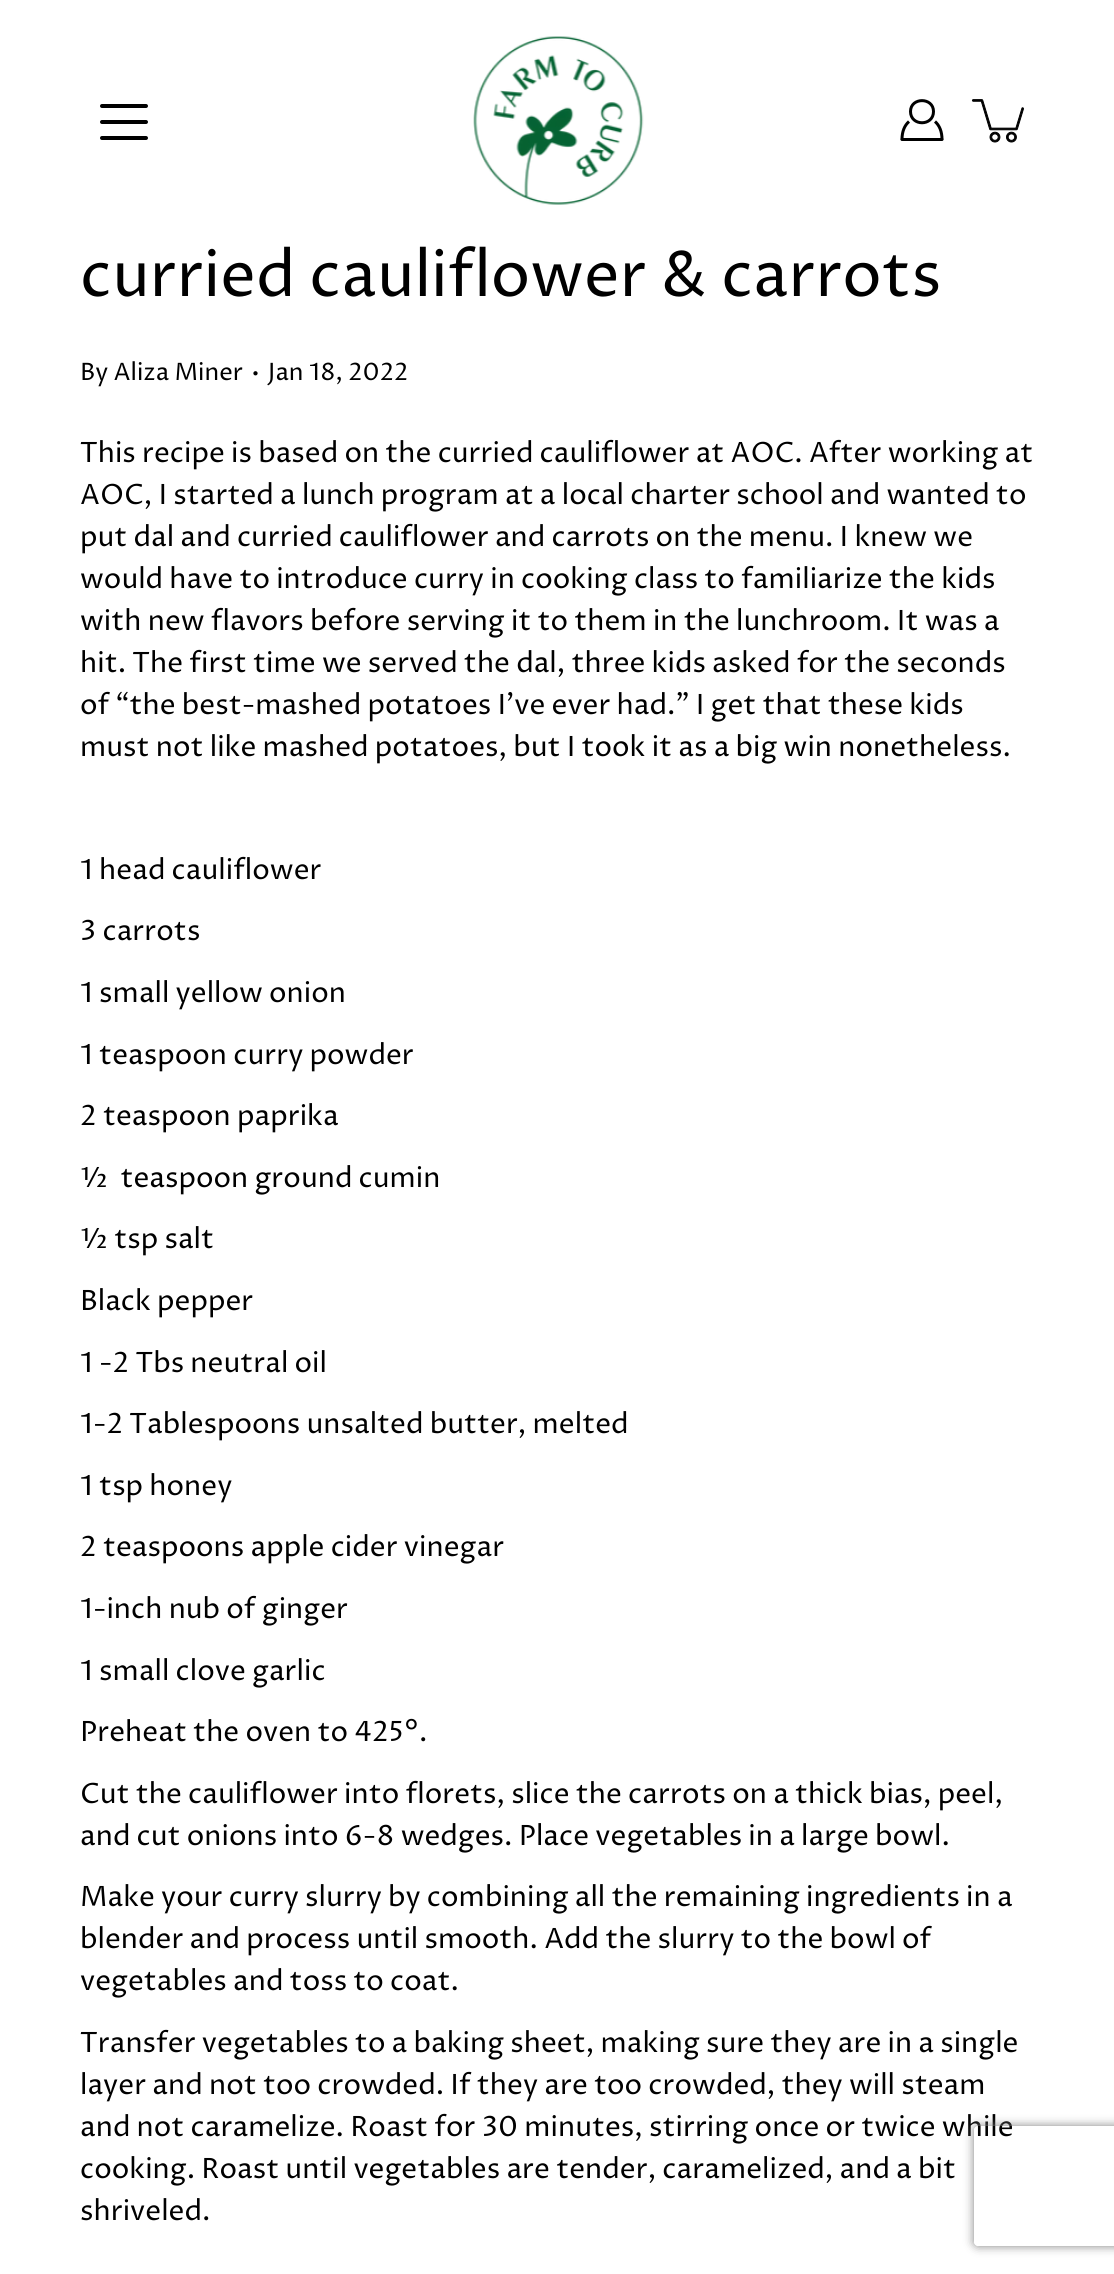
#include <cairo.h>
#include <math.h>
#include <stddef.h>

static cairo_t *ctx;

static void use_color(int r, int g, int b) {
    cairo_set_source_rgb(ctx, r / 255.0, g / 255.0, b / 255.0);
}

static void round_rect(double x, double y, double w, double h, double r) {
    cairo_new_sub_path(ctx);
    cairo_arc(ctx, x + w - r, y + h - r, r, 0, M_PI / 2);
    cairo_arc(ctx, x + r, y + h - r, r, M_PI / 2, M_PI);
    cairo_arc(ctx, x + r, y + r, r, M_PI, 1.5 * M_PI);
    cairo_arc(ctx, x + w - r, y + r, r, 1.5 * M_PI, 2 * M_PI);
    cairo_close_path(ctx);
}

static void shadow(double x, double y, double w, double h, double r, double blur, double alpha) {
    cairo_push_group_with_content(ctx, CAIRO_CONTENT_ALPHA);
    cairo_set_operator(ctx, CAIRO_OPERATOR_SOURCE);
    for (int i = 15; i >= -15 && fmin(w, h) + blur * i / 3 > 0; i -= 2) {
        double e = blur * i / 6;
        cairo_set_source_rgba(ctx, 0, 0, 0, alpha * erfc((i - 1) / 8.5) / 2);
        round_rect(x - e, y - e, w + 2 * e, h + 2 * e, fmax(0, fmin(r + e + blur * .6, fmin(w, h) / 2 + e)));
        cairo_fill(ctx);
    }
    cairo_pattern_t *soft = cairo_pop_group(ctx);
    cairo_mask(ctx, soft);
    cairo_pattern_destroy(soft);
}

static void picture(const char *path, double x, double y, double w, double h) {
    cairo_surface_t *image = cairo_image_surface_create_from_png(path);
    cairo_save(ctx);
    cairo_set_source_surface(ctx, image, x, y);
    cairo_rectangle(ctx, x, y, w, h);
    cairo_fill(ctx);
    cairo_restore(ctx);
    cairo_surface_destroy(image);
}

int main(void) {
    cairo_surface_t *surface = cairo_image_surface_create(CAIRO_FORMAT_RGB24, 1114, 2274);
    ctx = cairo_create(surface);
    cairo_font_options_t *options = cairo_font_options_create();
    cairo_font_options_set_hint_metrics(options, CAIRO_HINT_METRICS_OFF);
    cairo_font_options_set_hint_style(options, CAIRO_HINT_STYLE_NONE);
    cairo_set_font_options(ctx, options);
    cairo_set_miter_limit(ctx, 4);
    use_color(255, 255, 255);
    cairo_paint(ctx);
    picture("img1.png", 473, 36, 171, 169);
    use_color(0, 0, 0);
    round_rect(100, 120, 48, 4, 2);
    cairo_fill(ctx);
    round_rect(100, 104, 48, 4, 2);
    cairo_fill(ctx);
    round_rect(100, 136, 48, 4, 2);
    cairo_fill(ctx);
    cairo_new_path(ctx);
    cairo_move_to(ctx, 933.5, 111.5);
    cairo_curve_to(ctx, 933.5, 126.5, 910.5, 126.5, 910.5, 111.5);
    cairo_curve_to(ctx, 910.5, 97, 933.5, 97, 933.5, 111.5);
    cairo_close_path(ctx);
    cairo_set_line_width(ctx, 3);
    cairo_stroke(ctx);
    cairo_new_path(ctx);
    cairo_move_to(ctx, 909, 121.5);
    cairo_curve_to(ctx, 904.5, 125.5, 902, 131.5, 902, 139.5);
    cairo_move_to(ctx, 935, 121.5);
    cairo_curve_to(ctx, 939.5, 125.5, 942, 131.5, 942, 139.5);
    cairo_set_line_join(ctx, CAIRO_LINE_JOIN_ROUND);
    cairo_stroke(ctx);
    cairo_new_path(ctx);
    cairo_move_to(ctx, 902, 139.5);
    cairo_line_to(ctx, 942, 139.5);
    cairo_set_line_cap(ctx, CAIRO_LINE_CAP_ROUND);
    cairo_stroke(ctx);
    picture("img2.png", 971, 99, 53, 44);
    cairo_select_font_face(ctx, "Proza Libre", CAIRO_FONT_SLANT_NORMAL, CAIRO_FONT_WEIGHT_NORMAL);
    cairo_set_font_size(ctx, 63);
    cairo_move_to(ctx, 80, 296);
    cairo_show_text(ctx, "curried cauliflower & carrots");
    cairo_set_font_size(ctx, 24);
    cairo_move_to(ctx, 80, 380);
    cairo_show_text(ctx, "By Aliza Miner");
    cairo_move_to(ctx, 251, 380);
    cairo_show_text(ctx, "•");
    cairo_move_to(ctx, 268, 380);
    cairo_show_text(ctx, "Jan 18, 2022");
    cairo_set_font_size(ctx, 28);
    cairo_move_to(ctx, 80, 462);
    cairo_show_text(ctx, "This recipe is based on the curried cauliflower at AOC. After working at");
    cairo_move_to(ctx, 80, 504);
    cairo_show_text(ctx, "AOC, I started a lunch program at a local charter school and wanted to");
    cairo_move_to(ctx, 80, 546);
    cairo_show_text(ctx, "put dal and curried cauliflower and carrots on the menu. I knew we");
    cairo_move_to(ctx, 80, 588);
    cairo_show_text(ctx, "would have to introduce curry in cooking class to familiarize the kids");
    cairo_move_to(ctx, 80, 630);
    cairo_show_text(ctx, "with new flavors before serving it to them in the lunchroom. It was a");
    cairo_move_to(ctx, 80, 672);
    cairo_show_text(ctx, "hit. The first time we served the dal, three kids asked for the seconds");
    cairo_move_to(ctx, 80, 714);
    cairo_show_text(ctx, "of “the best-mashed potatoes I’ve ever had.” I get that these kids");
    cairo_move_to(ctx, 80, 756);
    cairo_show_text(ctx, "must not like mashed potatoes, but I took it as a big win nonetheless.");
    cairo_move_to(ctx, 80, 879);
    cairo_show_text(ctx, "1 head cauliflower");
    cairo_move_to(ctx, 80, 940);
    cairo_show_text(ctx, "3 carrots");
    cairo_move_to(ctx, 80, 1002);
    cairo_show_text(ctx, "1 small yellow onion");
    cairo_move_to(ctx, 80, 1064);
    cairo_show_text(ctx, "1 teaspoon curry powder");
    cairo_move_to(ctx, 80, 1125);
    cairo_show_text(ctx, "2 teaspoon paprika");
    cairo_move_to(ctx, 80, 1187);
    cairo_show_text(ctx, "½  teaspoon ground cumin");
    cairo_move_to(ctx, 80, 1248);
    cairo_show_text(ctx, "½ tsp salt");
    cairo_move_to(ctx, 80, 1310);
    cairo_show_text(ctx, "Black pepper");
    cairo_move_to(ctx, 80, 1372);
    cairo_show_text(ctx, "1 -2 Tbs neutral oil");
    cairo_move_to(ctx, 80, 1433);
    cairo_show_text(ctx, "1-2 Tablespoons unsalted butter, melted");
    cairo_move_to(ctx, 80, 1495);
    cairo_show_text(ctx, "1 tsp honey");
    cairo_move_to(ctx, 80, 1556);
    cairo_show_text(ctx, "2 teaspoons apple cider vinegar");
    cairo_move_to(ctx, 80, 1618);
    cairo_show_text(ctx, "1-inch nub of ginger");
    cairo_move_to(ctx, 80, 1680);
    cairo_show_text(ctx, "1 small clove garlic");
    cairo_move_to(ctx, 80, 1741);
    cairo_show_text(ctx, "Preheat the oven to 425°.");
    cairo_move_to(ctx, 80, 1803);
    cairo_show_text(ctx, "Cut the cauliflower into florets, slice the carrots on a thick bias, peel,");
    cairo_move_to(ctx, 80, 1845);
    cairo_show_text(ctx, "and cut onions into 6-8 wedges. Place vegetables in a large bowl.");
    cairo_move_to(ctx, 80, 1906);
    cairo_show_text(ctx, "Make your curry slurry by combining all the remaining ingredients in a");
    cairo_move_to(ctx, 80, 1948);
    cairo_show_text(ctx, "blender and process until smooth. Add the slurry to the bowl of");
    cairo_move_to(ctx, 80, 1990);
    cairo_show_text(ctx, "vegetables and toss to coat.");
    cairo_move_to(ctx, 80, 2052);
    cairo_show_text(ctx, "Transfer vegetables to a baking sheet, making sure they are in a single");
    cairo_move_to(ctx, 80, 2094);
    cairo_show_text(ctx, "layer and not too crowded. If they are too crowded, they will steam");
    cairo_move_to(ctx, 80, 2136);
    cairo_show_text(ctx, "and not caramelize. Roast for 30 minutes, stirring once or twice while");
    cairo_move_to(ctx, 80, 2178);
    cairo_show_text(ctx, "cooking. Roast until vegetables are tender, caramelized, and a bit");
    cairo_move_to(ctx, 80, 2220);
    cairo_show_text(ctx, "shriveled.");
    cairo_save(ctx);
    cairo_set_fill_rule(ctx, CAIRO_FILL_RULE_EVEN_ODD);
    cairo_new_path(ctx);
    cairo_move_to(ctx, 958, 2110);
    cairo_line_to(ctx, 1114, 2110);
    cairo_line_to(ctx, 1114, 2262);
    cairo_line_to(ctx, 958, 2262);
    cairo_close_path(ctx);
    cairo_move_to(ctx, 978, 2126);
    cairo_line_to(ctx, 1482, 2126);
    cairo_curve_to(ctx, 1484, 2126, 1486, 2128, 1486, 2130);
    cairo_line_to(ctx, 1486, 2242);
    cairo_curve_to(ctx, 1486, 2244, 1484, 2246, 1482, 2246);
    cairo_line_to(ctx, 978, 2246);
    cairo_curve_to(ctx, 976, 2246, 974, 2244, 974, 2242);
    cairo_line_to(ctx, 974, 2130);
    cairo_curve_to(ctx, 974, 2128, 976, 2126, 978, 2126);
    cairo_close_path(ctx);
    cairo_clip(ctx);
    use_color(128, 128, 128);
    shadow(974, 2126, 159, 120, 4, 5, 1);
    cairo_restore(ctx);
    cairo_surface_write_to_png(surface, "result.png");
    cairo_font_options_destroy(options);
    cairo_destroy(ctx);
    cairo_surface_destroy(surface);
    return 0;
}
